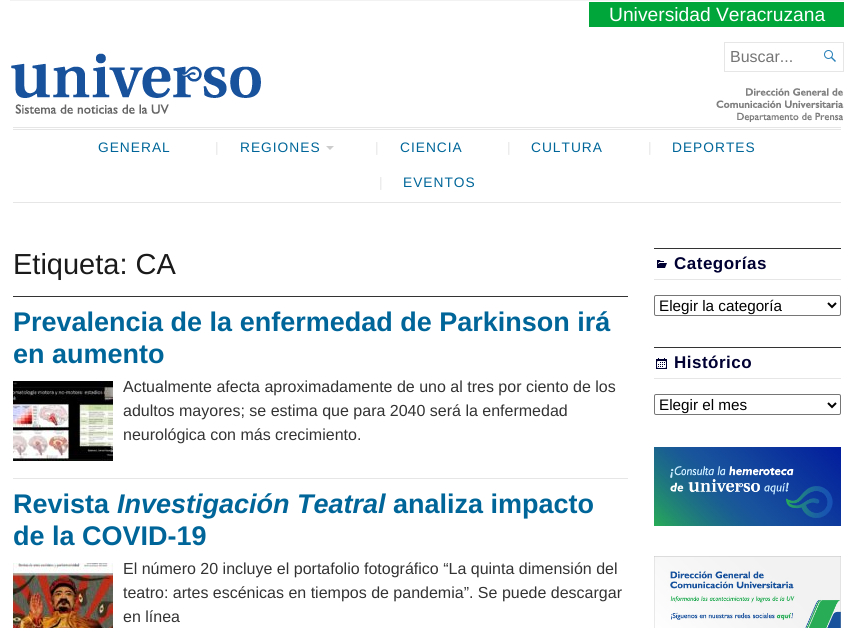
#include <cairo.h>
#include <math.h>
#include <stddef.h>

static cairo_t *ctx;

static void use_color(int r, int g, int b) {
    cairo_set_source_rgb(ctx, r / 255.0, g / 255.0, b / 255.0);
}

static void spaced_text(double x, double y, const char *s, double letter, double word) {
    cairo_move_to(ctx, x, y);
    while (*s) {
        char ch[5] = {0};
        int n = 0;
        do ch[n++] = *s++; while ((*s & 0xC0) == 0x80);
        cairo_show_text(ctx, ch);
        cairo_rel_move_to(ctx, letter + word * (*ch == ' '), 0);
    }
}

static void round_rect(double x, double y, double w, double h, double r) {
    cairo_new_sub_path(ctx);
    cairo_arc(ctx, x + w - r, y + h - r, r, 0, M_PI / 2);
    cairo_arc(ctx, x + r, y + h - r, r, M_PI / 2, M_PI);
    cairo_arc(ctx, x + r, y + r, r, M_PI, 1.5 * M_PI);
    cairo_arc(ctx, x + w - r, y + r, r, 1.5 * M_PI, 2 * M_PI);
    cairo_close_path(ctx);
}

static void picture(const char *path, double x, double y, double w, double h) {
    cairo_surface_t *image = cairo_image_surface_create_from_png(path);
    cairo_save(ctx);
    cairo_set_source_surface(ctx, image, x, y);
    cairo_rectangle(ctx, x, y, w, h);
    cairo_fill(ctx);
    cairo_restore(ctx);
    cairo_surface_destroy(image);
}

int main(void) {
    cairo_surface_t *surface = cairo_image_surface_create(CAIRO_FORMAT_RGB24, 854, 628);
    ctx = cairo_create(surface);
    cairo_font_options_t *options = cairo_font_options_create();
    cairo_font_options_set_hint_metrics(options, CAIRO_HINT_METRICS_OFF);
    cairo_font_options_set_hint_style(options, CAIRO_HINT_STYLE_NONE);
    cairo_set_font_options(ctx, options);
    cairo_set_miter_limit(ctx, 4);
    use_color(255, 255, 255);
    cairo_paint(ctx);
    use_color(242, 242, 242);
    cairo_rectangle(ctx, 10, 0, 834, 1);
    cairo_fill(ctx);
    use_color(0, 166, 57);
    cairo_rectangle(ctx, 589, 2, 255, 25);
    cairo_fill(ctx);
    cairo_select_font_face(ctx, "Liberation Sans", CAIRO_FONT_SLANT_NORMAL, CAIRO_FONT_WEIGHT_NORMAL);
    cairo_set_font_size(ctx, 19.25);
    use_color(255, 255, 255);
    cairo_move_to(ctx, 609, 21);
    cairo_show_text(ctx, "Universidad Veracruzana");
    cairo_rectangle(ctx, 724.5, 42.5, 119, 29);
    use_color(230, 230, 230);
    cairo_set_line_width(ctx, 1);
    cairo_stroke(ctx);
    cairo_set_font_size(ctx, 16);
    use_color(117, 117, 117);
    cairo_move_to(ctx, 730, 62);
    cairo_show_text(ctx, "Buscar...");
    picture("img1.png", 824, 50, 12, 12);
    picture("img2.png", 716, 88, 128, 34);
    picture("img3.png", 11, 53, 250, 61);
    use_color(230, 230, 230);
    cairo_rectangle(ctx, 13, 127, 828, 1);
    cairo_fill(ctx);
    cairo_rectangle(ctx, 13, 129, 828, 1);
    cairo_fill(ctx);
    cairo_rectangle(ctx, 13, 202, 828, 1);
    cairo_fill(ctx);
    cairo_set_font_size(ctx, 13.75);
    use_color(0, 102, 153);
    spaced_text(98, 152, "GENERAL", 1, 0);
    use_color(230, 230, 230);
    spaced_text(215, 152, "|", 1, 0);
    use_color(0, 102, 153);
    spaced_text(240, 152, "REGIONES", 1, 0);
    use_color(204, 204, 204);
    cairo_new_path(ctx);
    cairo_move_to(ctx, 326, 146);
    cairo_line_to(ctx, 334, 146);
    cairo_line_to(ctx, 330, 150);
    cairo_close_path(ctx);
    cairo_fill(ctx);
    use_color(230, 230, 230);
    spaced_text(375, 152, "|", 1, 0);
    use_color(0, 102, 153);
    spaced_text(400, 152, "CIENCIA", 1, 0);
    use_color(230, 230, 230);
    spaced_text(507, 152, "|", 1, 0);
    use_color(0, 102, 153);
    spaced_text(531, 152, "CULTURA", 1, 0);
    use_color(230, 230, 230);
    spaced_text(648, 152, "|", 1, 0);
    use_color(0, 102, 153);
    spaced_text(672, 152, "DEPORTES", 1, 0);
    use_color(230, 230, 230);
    spaced_text(379, 187, "|", 1, 0);
    use_color(0, 102, 153);
    spaced_text(403, 187, "EVENTOS", 1, 0);
    cairo_set_font_size(ctx, 29);
    use_color(26, 26, 26);
    cairo_move_to(ctx, 13, 274);
    cairo_show_text(ctx, "Etiqueta: CA");
    use_color(51, 51, 51);
    cairo_rectangle(ctx, 13, 296, 615, 1);
    cairo_fill(ctx);
    use_color(230, 230, 230);
    cairo_rectangle(ctx, 13, 478, 615, 1);
    cairo_fill(ctx);
    cairo_select_font_face(ctx, "Liberation Sans", CAIRO_FONT_SLANT_NORMAL, CAIRO_FONT_WEIGHT_BOLD);
    cairo_set_font_size(ctx, 27);
    use_color(0, 102, 153);
    cairo_move_to(ctx, 13, 331);
    cairo_show_text(ctx, "Prevalencia de la enfermedad de Parkinson irá");
    cairo_move_to(ctx, 13, 363);
    cairo_show_text(ctx, "en aumento");
    picture("img4.png", 13, 381, 100, 80);
    cairo_select_font_face(ctx, "Liberation Sans", CAIRO_FONT_SLANT_NORMAL, CAIRO_FONT_WEIGHT_NORMAL);
    cairo_set_font_size(ctx, 16);
    use_color(51, 51, 51);
    cairo_move_to(ctx, 123, 392);
    cairo_show_text(ctx, "Actualmente afecta aproximadamente de uno al tres por ciento de los");
    cairo_move_to(ctx, 123, 416);
    cairo_show_text(ctx, "adultos mayores; se estima que para 2040 será la enfermedad");
    cairo_move_to(ctx, 123, 440);
    cairo_show_text(ctx, "neurológica con más crecimiento.");
    cairo_select_font_face(ctx, "Liberation Sans", CAIRO_FONT_SLANT_NORMAL, CAIRO_FONT_WEIGHT_BOLD);
    cairo_set_font_size(ctx, 27);
    use_color(0, 102, 153);
    cairo_move_to(ctx, 13, 513);
    cairo_show_text(ctx, "Revista");
    cairo_select_font_face(ctx, "Liberation Sans", CAIRO_FONT_SLANT_ITALIC, CAIRO_FONT_WEIGHT_BOLD);
    cairo_move_to(ctx, 117, 513);
    cairo_show_text(ctx, "Investigación Teatral");
    cairo_select_font_face(ctx, "Liberation Sans", CAIRO_FONT_SLANT_NORMAL, CAIRO_FONT_WEIGHT_BOLD);
    cairo_move_to(ctx, 393, 513);
    cairo_show_text(ctx, "analiza impacto");
    cairo_move_to(ctx, 13, 545);
    cairo_show_text(ctx, "de la COVID-19");
    picture("img5.png", 13, 563, 100, 65);
    cairo_select_font_face(ctx, "Liberation Sans", CAIRO_FONT_SLANT_NORMAL, CAIRO_FONT_WEIGHT_NORMAL);
    cairo_set_font_size(ctx, 16);
    use_color(51, 51, 51);
    cairo_move_to(ctx, 123, 574);
    cairo_show_text(ctx, "El número 20 incluye el portafolio fotográfico “La quinta dimensión del");
    cairo_move_to(ctx, 123, 598);
    cairo_show_text(ctx, "teatro: artes escénicas en tiempos de pandemia”. Se puede descargar");
    cairo_move_to(ctx, 123, 622);
    cairo_show_text(ctx, "en línea");
    cairo_rectangle(ctx, 654, 248, 187, 1);
    cairo_fill(ctx);
    use_color(230, 230, 230);
    cairo_rectangle(ctx, 654, 279, 187, 1);
    cairo_fill(ctx);
    picture("img6.png", 657, 260, 10, 8);
    cairo_select_font_face(ctx, "Liberation Sans", CAIRO_FONT_SLANT_NORMAL, CAIRO_FONT_WEIGHT_BOLD);
    cairo_set_font_size(ctx, 17);
    use_color(0, 0, 51);
    spaced_text(674, 269, "Categorías", 0.5, 0);
    round_rect(654.5, 295.5, 186, 20, 1.5);
    use_color(118, 118, 118);
    cairo_stroke(ctx);
    cairo_new_path(ctx);
    cairo_move_to(ctx, 828, 303);
    cairo_line_to(ctx, 832, 307);
    cairo_line_to(ctx, 836, 303);
    use_color(0, 0, 0);
    cairo_set_line_width(ctx, 2);
    cairo_stroke(ctx);
    cairo_select_font_face(ctx, "Liberation Sans", CAIRO_FONT_SLANT_NORMAL, CAIRO_FONT_WEIGHT_NORMAL);
    cairo_set_font_size(ctx, 15.25);
    cairo_move_to(ctx, 659, 311);
    cairo_show_text(ctx, "Elegir la categoría");
    use_color(51, 51, 51);
    cairo_rectangle(ctx, 654, 347, 187, 1);
    cairo_fill(ctx);
    use_color(230, 230, 230);
    cairo_rectangle(ctx, 654, 378, 187, 1);
    cairo_fill(ctx);
    picture("img7.png", 656, 358, 11, 11);
    cairo_select_font_face(ctx, "Liberation Sans", CAIRO_FONT_SLANT_NORMAL, CAIRO_FONT_WEIGHT_BOLD);
    cairo_set_font_size(ctx, 17);
    use_color(0, 0, 51);
    spaced_text(674, 368, "Histórico", 0.5, 0);
    round_rect(654.5, 394.5, 186, 20, 1.5);
    use_color(118, 118, 118);
    cairo_set_line_width(ctx, 1);
    cairo_stroke(ctx);
    cairo_new_path(ctx);
    cairo_move_to(ctx, 828, 403);
    cairo_line_to(ctx, 832, 407);
    cairo_line_to(ctx, 836, 403);
    use_color(0, 0, 0);
    cairo_set_line_width(ctx, 2);
    cairo_stroke(ctx);
    cairo_select_font_face(ctx, "Liberation Sans", CAIRO_FONT_SLANT_NORMAL, CAIRO_FONT_WEIGHT_NORMAL);
    cairo_set_font_size(ctx, 15.25);
    cairo_move_to(ctx, 659, 410);
    cairo_show_text(ctx, "Elegir el mes");
    picture("img8.png", 654, 447, 187, 79);
    picture("img9.png", 654, 556, 187, 72);
    cairo_surface_write_to_png(surface, "result.png");
    cairo_font_options_destroy(options);
    cairo_destroy(ctx);
    cairo_surface_destroy(surface);
    return 0;
}
